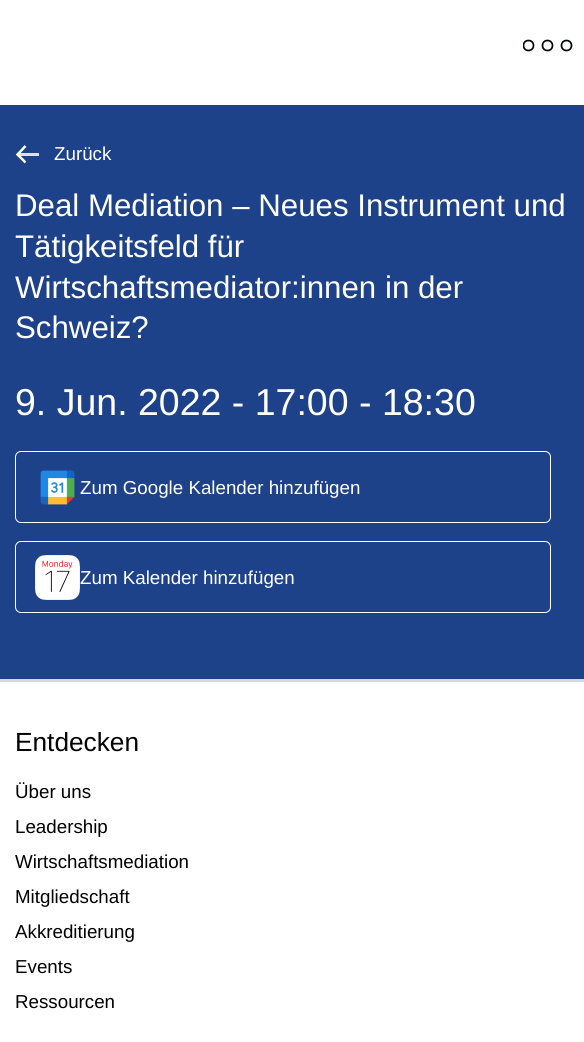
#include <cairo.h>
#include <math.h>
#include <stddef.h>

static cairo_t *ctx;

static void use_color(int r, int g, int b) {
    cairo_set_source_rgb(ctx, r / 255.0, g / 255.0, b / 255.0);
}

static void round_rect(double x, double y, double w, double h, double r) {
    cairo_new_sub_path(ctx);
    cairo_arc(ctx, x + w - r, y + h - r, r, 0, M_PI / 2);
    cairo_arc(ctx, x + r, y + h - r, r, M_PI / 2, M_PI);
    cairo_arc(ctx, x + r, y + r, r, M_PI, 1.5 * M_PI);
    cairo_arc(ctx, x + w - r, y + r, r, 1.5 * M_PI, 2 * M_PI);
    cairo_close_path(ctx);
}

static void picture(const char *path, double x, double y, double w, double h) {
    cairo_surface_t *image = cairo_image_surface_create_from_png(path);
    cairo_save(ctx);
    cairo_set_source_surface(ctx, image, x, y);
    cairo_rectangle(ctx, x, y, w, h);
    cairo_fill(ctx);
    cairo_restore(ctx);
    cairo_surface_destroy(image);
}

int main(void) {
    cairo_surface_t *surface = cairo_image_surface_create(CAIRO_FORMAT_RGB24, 584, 1042);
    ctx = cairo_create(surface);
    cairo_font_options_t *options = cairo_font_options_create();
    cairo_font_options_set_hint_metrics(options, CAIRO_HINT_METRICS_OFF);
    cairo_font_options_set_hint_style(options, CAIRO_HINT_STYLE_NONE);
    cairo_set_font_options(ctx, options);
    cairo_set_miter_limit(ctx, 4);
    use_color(255, 255, 255);
    cairo_paint(ctx);
    cairo_save(ctx);
    cairo_rectangle(ctx, 523, 26, 50, 38);
    cairo_clip(ctx);
    cairo_arc(ctx, 528.5, 45.5, 5, 0, 2 * M_PI);
    use_color(1, 2, 2);
    cairo_set_line_width(ctx, 1.7);
    cairo_stroke(ctx);
    cairo_restore(ctx);
    cairo_arc(ctx, 547.5, 45.5, 5, 0, 2 * M_PI);
    use_color(1, 2, 2);
    cairo_set_line_width(ctx, 1.7);
    cairo_stroke(ctx);
    cairo_arc(ctx, 566.5, 45.5, 5, 0, 2 * M_PI);
    cairo_stroke(ctx);
    use_color(30, 66, 138);
    cairo_rectangle(ctx, 0, 105, 584, 574);
    cairo_fill(ctx);
    use_color(218, 224, 236);
    cairo_rectangle(ctx, 18, 153, 21, 3);
    cairo_fill(ctx);
    cairo_new_path(ctx);
    cairo_move_to(ctx, 25.5, 162.5);
    cairo_line_to(ctx, 17.5, 154.5);
    cairo_line_to(ctx, 25.5, 146);
    use_color(255, 255, 255);
    cairo_set_line_width(ctx, 2.5);
    cairo_stroke(ctx);
    cairo_select_font_face(ctx, "Liberation Sans", CAIRO_FONT_SLANT_NORMAL, CAIRO_FONT_WEIGHT_NORMAL);
    cairo_set_font_size(ctx, 18.75);
    cairo_move_to(ctx, 54, 160);
    cairo_show_text(ctx, "Zurück");
    cairo_set_font_size(ctx, 31.25);
    cairo_move_to(ctx, 15, 216);
    cairo_show_text(ctx, "Deal Mediation – Neues Instrument und");
    cairo_move_to(ctx, 15, 257);
    cairo_show_text(ctx, "Tätigkeitsfeld für");
    cairo_move_to(ctx, 15, 298);
    cairo_show_text(ctx, "Wirtschaftsmediator:innen in der");
    cairo_move_to(ctx, 15, 338);
    cairo_show_text(ctx, "Schweiz?");
    cairo_set_font_size(ctx, 37.5);
    cairo_move_to(ctx, 15, 415);
    cairo_show_text(ctx, "9. Jun. 2022 - 17:00 - 18:30");
    round_rect(15.5, 451.5, 535, 71, 5.5);
    cairo_set_line_width(ctx, 1);
    cairo_stroke(ctx);
    picture("img1.png", 40, 470, 35, 35);
    cairo_set_font_size(ctx, 18.75);
    cairo_move_to(ctx, 80, 494);
    cairo_show_text(ctx, "Zum Google Kalender hinzufügen");
    round_rect(15.5, 541.5, 535, 71, 5.5);
    cairo_stroke(ctx);
    picture("img2.png", 35, 555, 45, 45);
    cairo_move_to(ctx, 80, 584);
    cairo_show_text(ctx, "Zum Kalender hinzufügen");
    use_color(216, 216, 216);
    cairo_rectangle(ctx, 0, 679, 584, 3);
    cairo_fill(ctx);
    cairo_set_font_size(ctx, 26.25);
    use_color(0, 0, 0);
    cairo_move_to(ctx, 15, 751);
    cairo_show_text(ctx, "Entdecken");
    cairo_set_font_size(ctx, 18.75);
    cairo_move_to(ctx, 15, 798);
    cairo_show_text(ctx, "Über uns");
    cairo_move_to(ctx, 15, 833);
    cairo_show_text(ctx, "Leadership");
    cairo_move_to(ctx, 15, 868);
    cairo_show_text(ctx, "Wirtschaftsmediation");
    cairo_move_to(ctx, 15, 903);
    cairo_show_text(ctx, "Mitgliedschaft");
    cairo_move_to(ctx, 15, 938);
    cairo_show_text(ctx, "Akkreditierung");
    cairo_move_to(ctx, 15, 973);
    cairo_show_text(ctx, "Events");
    cairo_move_to(ctx, 15, 1008);
    cairo_show_text(ctx, "Ressourcen");
    cairo_surface_write_to_png(surface, "result.png");
    cairo_font_options_destroy(options);
    cairo_destroy(ctx);
    cairo_surface_destroy(surface);
    return 0;
}
